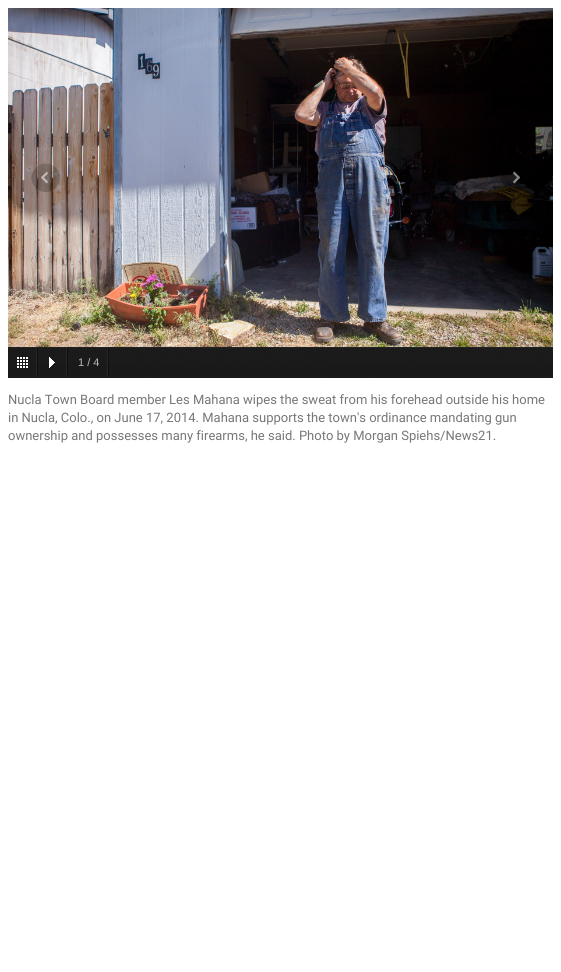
#include <cairo.h>
#include <math.h>
#include <stddef.h>

static cairo_t *ctx;

static void use_color(int r, int g, int b) {
    cairo_set_source_rgb(ctx, r / 255.0, g / 255.0, b / 255.0);
}

static void picture(const char *path, double x, double y, double w, double h) {
    cairo_surface_t *image = cairo_image_surface_create_from_png(path);
    cairo_save(ctx);
    cairo_set_source_surface(ctx, image, x, y);
    cairo_rectangle(ctx, x, y, w, h);
    cairo_fill(ctx);
    cairo_restore(ctx);
    cairo_surface_destroy(image);
}

int main(void) {
    cairo_surface_t *surface = cairo_image_surface_create(CAIRO_FORMAT_RGB24, 561, 972);
    ctx = cairo_create(surface);
    cairo_font_options_t *options = cairo_font_options_create();
    cairo_font_options_set_hint_metrics(options, CAIRO_HINT_METRICS_OFF);
    cairo_font_options_set_hint_style(options, CAIRO_HINT_STYLE_NONE);
    cairo_set_font_options(ctx, options);
    cairo_set_miter_limit(ctx, 4);
    use_color(255, 255, 255);
    cairo_paint(ctx);
    picture("img1.png", 8, 8, 545, 339);
    picture("img2.png", 31, 163, 29, 29);
    picture("img3.png", 501, 171, 25, 21);
    use_color(34, 34, 34);
    cairo_rectangle(ctx, 8, 347, 545, 31);
    cairo_fill(ctx);
    picture("img4.png", 8, 348, 545, 30);
    picture("img5.png", 17, 357, 11, 11);
    picture("img6.png", 36, 348, 2, 29);
    picture("img7.png", 49, 357, 6, 11);
    picture("img8.png", 66, 348, 2, 29);
    picture("img9.png", 107, 348, 2, 29);
    cairo_select_font_face(ctx, "Liberation Sans", CAIRO_FONT_SLANT_NORMAL, CAIRO_FONT_WEIGHT_NORMAL);
    cairo_set_font_size(ctx, 11);
    use_color(187, 187, 187);
    cairo_move_to(ctx, 78, 366);
    cairo_show_text(ctx, "1 / 4");
    cairo_select_font_face(ctx, "Roboto", CAIRO_FONT_SLANT_NORMAL, CAIRO_FONT_WEIGHT_NORMAL);
    cairo_set_font_size(ctx, 13);
    use_color(119, 119, 119);
    cairo_move_to(ctx, 8, 404);
    cairo_show_text(ctx, "Nucla Town Board member Les Mahana wipes the sweat from his forehead outside his home");
    cairo_move_to(ctx, 8, 422);
    cairo_show_text(ctx, "in Nucla, Colo., on June 17, 2014. Mahana supports the town's ordinance mandating gun");
    cairo_move_to(ctx, 8, 440);
    cairo_show_text(ctx, "ownership and possesses many firearms, he said. Photo by Morgan Spiehs/News21.");
    cairo_surface_write_to_png(surface, "result.png");
    cairo_font_options_destroy(options);
    cairo_destroy(ctx);
    cairo_surface_destroy(surface);
    return 0;
}
